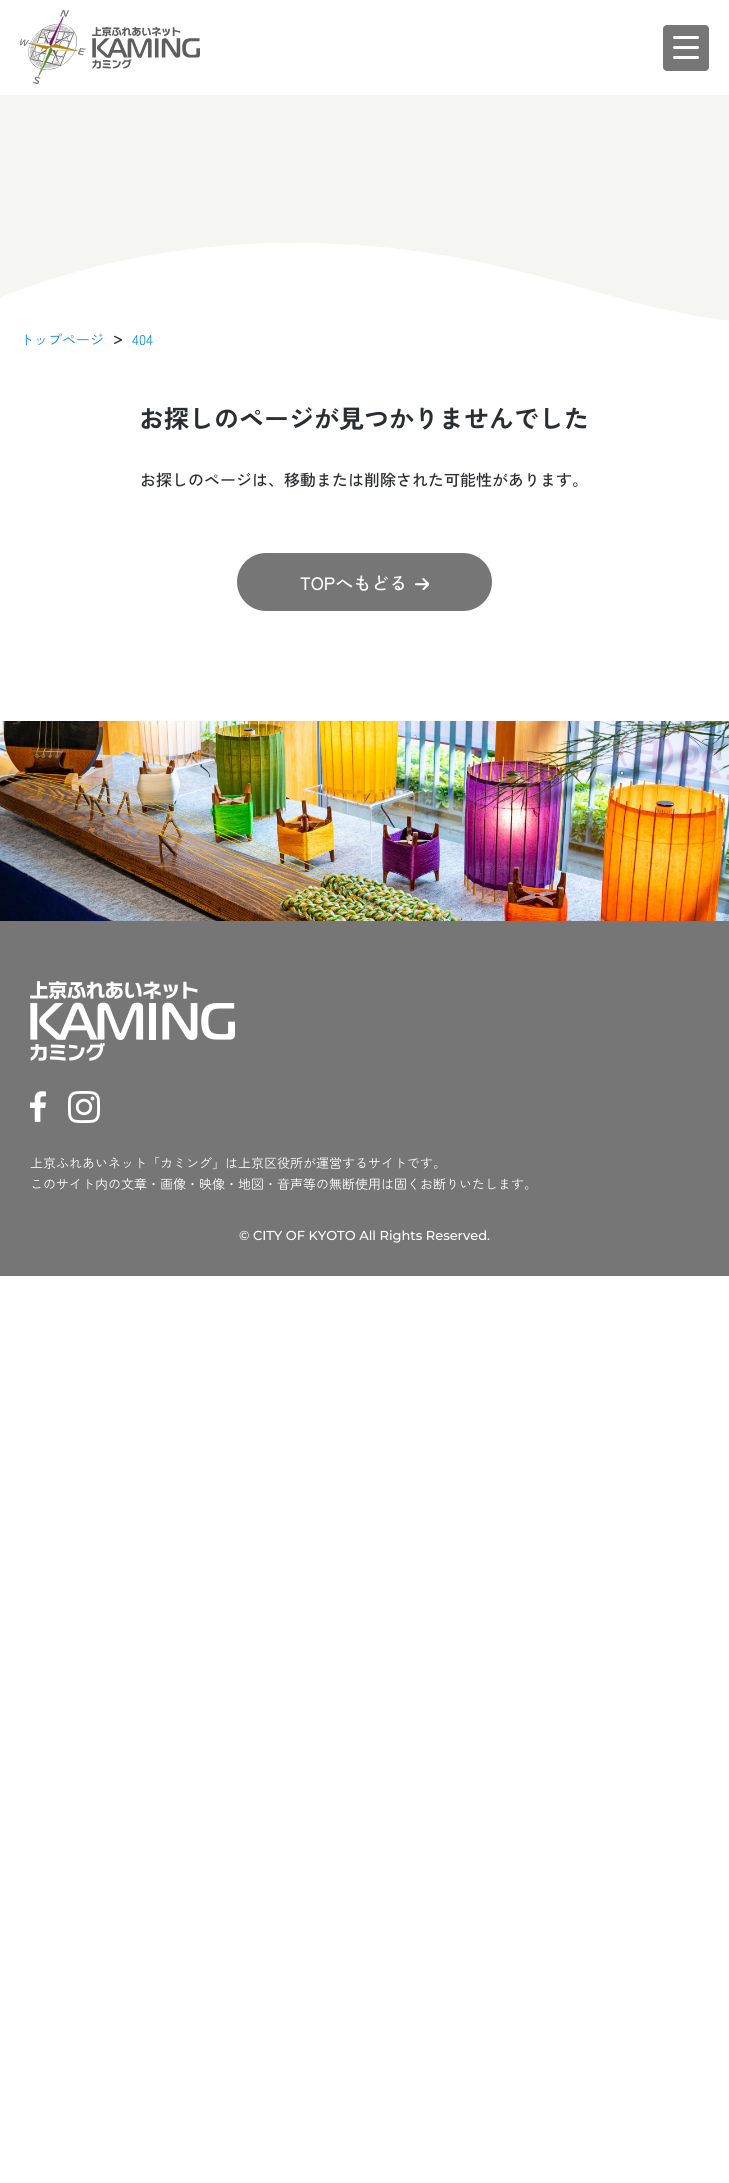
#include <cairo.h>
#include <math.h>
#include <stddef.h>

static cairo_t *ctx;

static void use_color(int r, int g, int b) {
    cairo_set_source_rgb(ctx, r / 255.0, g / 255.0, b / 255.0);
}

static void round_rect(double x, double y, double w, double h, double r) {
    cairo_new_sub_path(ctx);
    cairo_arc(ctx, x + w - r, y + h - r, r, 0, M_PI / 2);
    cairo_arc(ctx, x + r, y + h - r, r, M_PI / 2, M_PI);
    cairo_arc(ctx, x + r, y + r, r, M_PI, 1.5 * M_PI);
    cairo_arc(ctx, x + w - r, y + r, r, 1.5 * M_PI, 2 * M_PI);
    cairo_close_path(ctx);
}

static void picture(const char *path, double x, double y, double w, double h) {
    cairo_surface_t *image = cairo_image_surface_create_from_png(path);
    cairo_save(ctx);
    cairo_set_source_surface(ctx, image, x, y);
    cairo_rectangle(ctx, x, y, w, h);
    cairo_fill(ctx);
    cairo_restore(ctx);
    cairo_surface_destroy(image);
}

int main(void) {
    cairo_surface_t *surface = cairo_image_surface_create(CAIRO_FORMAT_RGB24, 729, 2183);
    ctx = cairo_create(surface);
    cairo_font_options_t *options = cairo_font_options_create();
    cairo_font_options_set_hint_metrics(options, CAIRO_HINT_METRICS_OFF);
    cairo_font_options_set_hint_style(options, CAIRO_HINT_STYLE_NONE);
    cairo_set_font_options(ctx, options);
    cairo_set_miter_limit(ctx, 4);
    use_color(255, 255, 255);
    cairo_paint(ctx);
    picture("img1.png", 20, 10, 180, 74);
    use_color(118, 118, 118);
    round_rect(663, 25, 46, 46, 4);
    cairo_fill(ctx);
    use_color(255, 255, 255);
    round_rect(673, 46, 26, 3, 1.5);
    cairo_fill(ctx);
    round_rect(673, 36, 26, 3, 1.5);
    cairo_fill(ctx);
    round_rect(673, 56, 26, 3, 1.5);
    cairo_fill(ctx);
    use_color(245, 245, 242);
    cairo_rectangle(ctx, 0, 95, 729, 226);
    cairo_fill(ctx);
    picture("img2.png", 0, 243, 729, 87);
    cairo_select_font_face(ctx, "Zen Kaku Gothic New", CAIRO_FONT_SLANT_NORMAL, CAIRO_FONT_WEIGHT_NORMAL);
    cairo_set_font_size(ctx, 14);
    use_color(0, 136, 204);
    cairo_move_to(ctx, 20, 345);
    cairo_show_text(ctx, "トップページ");
    picture("img3.png", 114, 335, 9, 9);
    cairo_move_to(ctx, 132, 345);
    cairo_show_text(ctx, "404");
    cairo_select_font_face(ctx, "Zen Kaku Gothic New", CAIRO_FONT_SLANT_NORMAL, CAIRO_FONT_WEIGHT_BOLD);
    cairo_set_font_size(ctx, 25);
    use_color(42, 45, 50);
    cairo_move_to(ctx, 139, 428);
    cairo_show_text(ctx, "お探しのページが見つかりませんでした");
    cairo_select_font_face(ctx, "Zen Kaku Gothic New Medium", CAIRO_FONT_SLANT_NORMAL, CAIRO_FONT_WEIGHT_NORMAL);
    cairo_set_font_size(ctx, 16);
    cairo_move_to(ctx, 140, 486);
    cairo_show_text(ctx, "お探しのページは、移動または削除された可能性があります。");
    use_color(118, 118, 118);
    round_rect(237, 553, 255, 58, 29);
    cairo_fill(ctx);
    cairo_set_font_size(ctx, 18);
    use_color(255, 255, 255);
    cairo_move_to(ctx, 300, 590);
    cairo_show_text(ctx, "TOPへもどる");
    picture("img4.png", 415, 578, 14, 12);
    use_color(118, 118, 118);
    cairo_rectangle(ctx, 0, 921, 729, 355);
    cairo_fill(ctx);
    picture("img5.png", 0, 721, 729, 200);
    picture("img6.png", 30, 981, 205, 80);
    picture("img7.png", 30, 1091, 16, 31);
    picture("img8.png", 68, 1091, 32, 32);
    cairo_select_font_face(ctx, "Zen Kaku Gothic New", CAIRO_FONT_SLANT_NORMAL, CAIRO_FONT_WEIGHT_NORMAL);
    cairo_set_font_size(ctx, 13);
    use_color(255, 255, 255);
    cairo_move_to(ctx, 30, 1168);
    cairo_show_text(ctx, "上京ふれあいネット「カミング」は上京区役所が運営するサイトです。");
    cairo_move_to(ctx, 30, 1189);
    cairo_show_text(ctx, "このサイト内の文章・画像・映像・地図・音声等の無断使用は固くお断りいたします。");
    cairo_select_font_face(ctx, "Montserrat Medium", CAIRO_FONT_SLANT_NORMAL, CAIRO_FONT_WEIGHT_NORMAL);
    cairo_move_to(ctx, 239, 1240);
    cairo_show_text(ctx, "© CITY OF KYOTO All Rights Reserved.");
    cairo_surface_write_to_png(surface, "result.png");
    cairo_font_options_destroy(options);
    cairo_destroy(ctx);
    cairo_surface_destroy(surface);
    return 0;
}
